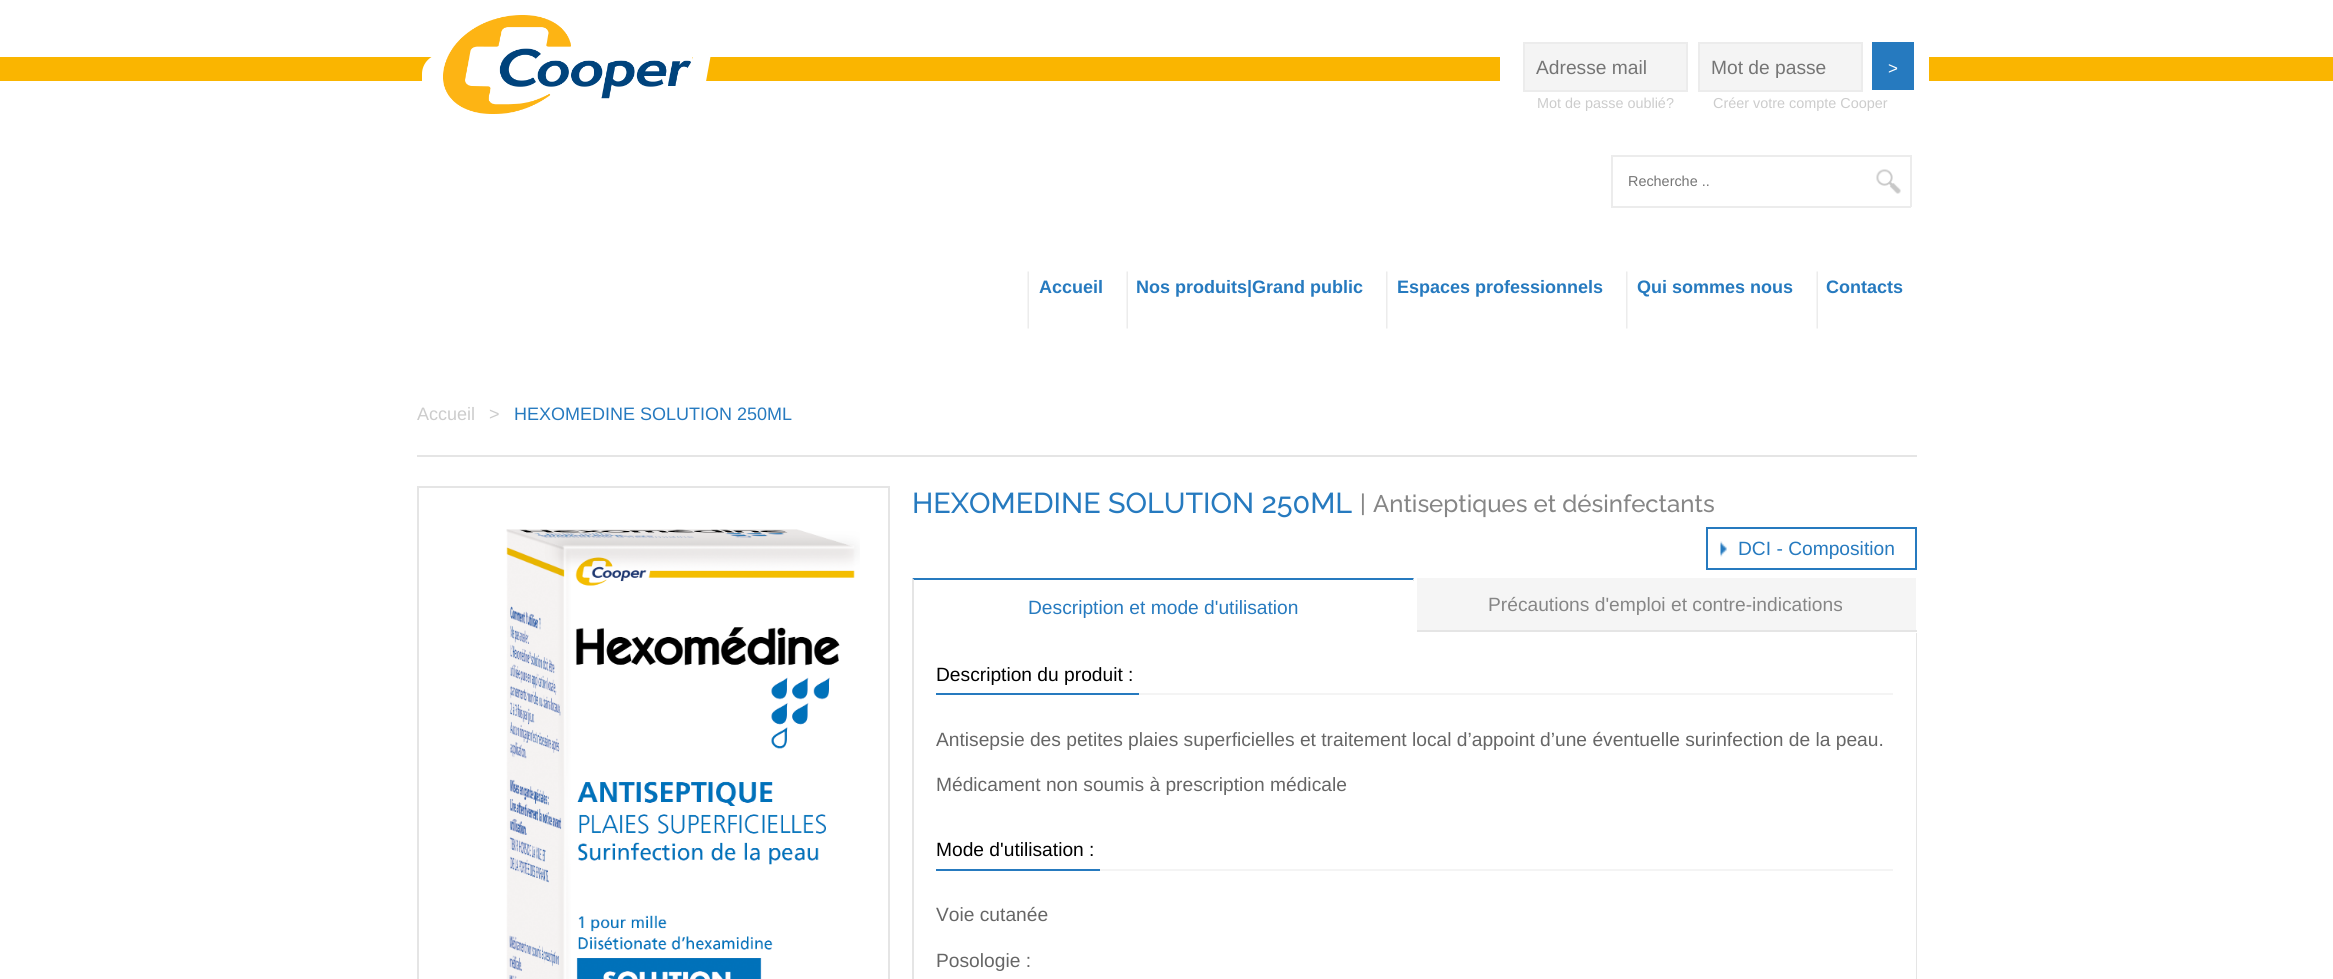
#include <cairo.h>
#include <math.h>
#include <stddef.h>

static cairo_t *ctx;

static void use_color(int r, int g, int b) {
    cairo_set_source_rgb(ctx, r / 255.0, g / 255.0, b / 255.0);
}

static void picture(const char *path, double x, double y, double w, double h) {
    cairo_surface_t *image = cairo_image_surface_create_from_png(path);
    cairo_save(ctx);
    cairo_set_source_surface(ctx, image, x, y);
    cairo_rectangle(ctx, x, y, w, h);
    cairo_fill(ctx);
    cairo_restore(ctx);
    cairo_surface_destroy(image);
}

int main(void) {
    cairo_surface_t *surface = cairo_image_surface_create(CAIRO_FORMAT_RGB24, 2333, 979);
    ctx = cairo_create(surface);
    cairo_font_options_t *options = cairo_font_options_create();
    cairo_font_options_set_hint_metrics(options, CAIRO_HINT_METRICS_OFF);
    cairo_font_options_set_hint_style(options, CAIRO_HINT_STYLE_NONE);
    cairo_set_font_options(ctx, options);
    cairo_set_miter_limit(ctx, 4);
    use_color(255, 255, 255);
    cairo_paint(ctx);
    use_color(250, 181, 0);
    cairo_rectangle(ctx, 0, 57, 2333, 24);
    cairo_fill(ctx);
    use_color(255, 255, 255);
    cairo_rectangle(ctx, 1500, 57, 429, 24);
    cairo_fill(ctx);
    use_color(244, 244, 244);
    cairo_rectangle(ctx, 1524, 43, 163, 48);
    cairo_fill_preserve(ctx);
    use_color(236, 236, 236);
    cairo_stroke(ctx);
    cairo_select_font_face(ctx, "Liberation Sans", CAIRO_FONT_SLANT_NORMAL, CAIRO_FONT_WEIGHT_NORMAL);
    cairo_set_font_size(ctx, 19.2);
    use_color(117, 117, 117);
    cairo_move_to(ctx, 1536, 74);
    cairo_show_text(ctx, "Adresse mail");
    use_color(244, 244, 244);
    cairo_rectangle(ctx, 1699, 43, 163, 48);
    cairo_fill_preserve(ctx);
    use_color(236, 236, 236);
    cairo_stroke(ctx);
    use_color(117, 117, 117);
    cairo_move_to(ctx, 1711, 74);
    cairo_show_text(ctx, "Mot de passe");
    use_color(38, 122, 191);
    cairo_rectangle(ctx, 1872, 42, 42, 48);
    cairo_fill(ctx);
    cairo_set_font_size(ctx, 17);
    use_color(255, 255, 255);
    cairo_move_to(ctx, 1888, 74);
    cairo_show_text(ctx, ">");
    cairo_set_font_size(ctx, 14.4);
    use_color(204, 204, 204);
    cairo_move_to(ctx, 1537, 108);
    cairo_show_text(ctx, "Mot de passe oublié?");
    cairo_move_to(ctx, 1713, 108);
    cairo_show_text(ctx, "Créer votre compte Cooper");
    use_color(255, 255, 255);
    cairo_rectangle(ctx, 443, 57, 249, 24);
    cairo_fill(ctx);
    cairo_new_path(ctx);
    cairo_move_to(ctx, 442, 54);
    cairo_line_to(ctx, 443, 54);
    cairo_line_to(ctx, 443, 87);
    cairo_line_to(ctx, 428, 87);
    cairo_curve_to(ctx, 424.5, 87, 422, 84.5, 422, 81);
    cairo_line_to(ctx, 422, 74);
    cairo_curve_to(ctx, 422, 63, 431, 54, 442, 54);
    cairo_close_path(ctx);
    cairo_fill(ctx);
    picture("img1.png", 443, 15, 249, 99);
    cairo_new_path(ctx);
    cairo_move_to(ctx, 693, 54);
    cairo_line_to(ctx, 711, 54);
    cairo_line_to(ctx, 705, 87);
    cairo_line_to(ctx, 687, 87);
    cairo_close_path(ctx);
    cairo_fill(ctx);
    use_color(236, 236, 236);
    cairo_rectangle(ctx, 1611, 155, 300, 2);
    cairo_fill(ctx);
    cairo_rectangle(ctx, 1611, 206, 255, 2);
    cairo_fill(ctx);
    cairo_rectangle(ctx, 1611, 155, 2, 52);
    cairo_fill(ctx);
    use_color(117, 117, 117);
    cairo_move_to(ctx, 1628, 186);
    cairo_show_text(ctx, "Recherche ..");
    picture("img2.png", 1876, 169, 25, 25);
    use_color(236, 236, 236);
    cairo_rectangle(ctx, 1910, 155, 2, 52);
    cairo_fill(ctx);
    cairo_rectangle(ctx, 1866, 206, 45, 2);
    cairo_fill(ctx);
    picture("img3.png", 1027, 271, 2, 58);
    cairo_select_font_face(ctx, "Liberation Sans", CAIRO_FONT_SLANT_NORMAL, CAIRO_FONT_WEIGHT_BOLD);
    cairo_set_font_size(ctx, 18);
    use_color(38, 122, 191);
    cairo_move_to(ctx, 1039, 293);
    cairo_show_text(ctx, "Accueil");
    picture("img3.png", 1126, 271, 2, 58);
    cairo_move_to(ctx, 1136, 293);
    cairo_show_text(ctx, "Nos produits|Grand public");
    picture("img4.png", 1386, 271, 2, 58);
    cairo_move_to(ctx, 1397, 293);
    cairo_show_text(ctx, "Espaces professionnels");
    picture("img4.png", 1626, 271, 2, 58);
    cairo_move_to(ctx, 1637, 293);
    cairo_show_text(ctx, "Qui sommes nous");
    picture("img3.png", 1816, 271, 2, 58);
    cairo_move_to(ctx, 1826, 293);
    cairo_show_text(ctx, "Contacts");
    use_color(229, 229, 229);
    cairo_rectangle(ctx, 417, 455, 1500, 2);
    cairo_fill(ctx);
    cairo_select_font_face(ctx, "Liberation Sans", CAIRO_FONT_SLANT_NORMAL, CAIRO_FONT_WEIGHT_NORMAL);
    use_color(204, 204, 204);
    cairo_move_to(ctx, 417, 420);
    cairo_show_text(ctx, "Accueil");
    cairo_move_to(ctx, 489, 420);
    cairo_show_text(ctx, ">");
    use_color(38, 122, 191);
    cairo_move_to(ctx, 514, 420);
    cairo_show_text(ctx, "HEXOMEDINE SOLUTION 250ML");
    cairo_rectangle(ctx, 418, 487, 471, 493);
    use_color(229, 229, 229);
    cairo_stroke(ctx);
    picture("img5.png", 506, 529, 354, 450);
    cairo_select_font_face(ctx, "Raleway Thin", CAIRO_FONT_SLANT_NORMAL, CAIRO_FONT_WEIGHT_NORMAL);
    cairo_set_font_size(ctx, 28.75);
    use_color(38, 122, 191);
    cairo_move_to(ctx, 912, 513);
    cairo_show_text(ctx, "HEXOMEDINE SOLUTION 250ML");
    cairo_set_font_size(ctx, 24);
    use_color(134, 134, 134);
    cairo_move_to(ctx, 1360, 512);
    cairo_show_text(ctx, "|");
    cairo_move_to(ctx, 1373, 512);
    cairo_show_text(ctx, "Antiseptiques et désinfectants");
    picture("img6.png", 1720, 541, 7, 16);
    cairo_rectangle(ctx, 1707, 528, 209, 41);
    use_color(38, 122, 191);
    cairo_stroke(ctx);
    cairo_select_font_face(ctx, "Liberation Sans", CAIRO_FONT_SLANT_NORMAL, CAIRO_FONT_WEIGHT_NORMAL);
    cairo_set_font_size(ctx, 19.2);
    cairo_move_to(ctx, 1738, 555);
    cairo_show_text(ctx, "DCI - Composition");
    cairo_new_path(ctx);
    cairo_move_to(ctx, 912, 578);
    cairo_line_to(ctx, 1414, 578);
    cairo_line_to(ctx, 1413, 580);
    cairo_line_to(ctx, 914, 580);
    cairo_close_path(ctx);
    cairo_fill(ctx);
    use_color(229, 229, 229);
    cairo_new_path(ctx);
    cairo_move_to(ctx, 1414, 578);
    cairo_line_to(ctx, 1414, 633);
    cairo_line_to(ctx, 1413, 633);
    cairo_line_to(ctx, 1413, 580);
    cairo_close_path(ctx);
    cairo_fill(ctx);
    cairo_new_path(ctx);
    cairo_move_to(ctx, 912, 633);
    cairo_line_to(ctx, 912, 578);
    cairo_line_to(ctx, 914, 580);
    cairo_line_to(ctx, 914, 633);
    cairo_close_path(ctx);
    cairo_fill(ctx);
    use_color(255, 255, 255);
    cairo_rectangle(ctx, 1413, 581, 1, 52);
    cairo_fill(ctx);
    use_color(38, 122, 191);
    cairo_move_to(ctx, 1028, 614);
    cairo_show_text(ctx, "Description et mode d'utilisation");
    use_color(245, 245, 245);
    cairo_rectangle(ctx, 1417, 578, 499, 52);
    cairo_fill(ctx);
    use_color(229, 229, 229);
    cairo_rectangle(ctx, 1415, 630, 502, 2);
    cairo_fill(ctx);
    use_color(255, 255, 255);
    cairo_rectangle(ctx, 1415, 630, 2, 2);
    cairo_fill(ctx);
    use_color(134, 134, 134);
    cairo_move_to(ctx, 1488, 611);
    cairo_show_text(ctx, "Précautions d'emploi et contre-indications");
    use_color(229, 229, 229);
    cairo_rectangle(ctx, 1916, 633, 1, 346);
    cairo_fill(ctx);
    cairo_rectangle(ctx, 912, 633, 2, 346);
    cairo_fill(ctx);
    use_color(244, 244, 244);
    cairo_rectangle(ctx, 1139, 693, 754, 2);
    cairo_fill(ctx);
    use_color(0, 0, 0);
    cairo_move_to(ctx, 936, 681);
    cairo_show_text(ctx, "Description du produit :");
    use_color(38, 122, 191);
    cairo_rectangle(ctx, 936, 693, 203, 2);
    cairo_fill(ctx);
    use_color(102, 102, 102);
    cairo_move_to(ctx, 936, 746);
    cairo_show_text(ctx, "Antisepsie des petites plaies superficielles et traitement local d’appoint d’une éventuelle surinfection de la peau.");
    cairo_move_to(ctx, 936, 791);
    cairo_show_text(ctx, "Médicament non soumis à prescription médicale");
    use_color(244, 244, 244);
    cairo_rectangle(ctx, 1100, 869, 793, 2);
    cairo_fill(ctx);
    use_color(0, 0, 0);
    cairo_move_to(ctx, 936, 856);
    cairo_show_text(ctx, "Mode d'utilisation :");
    use_color(38, 122, 191);
    cairo_rectangle(ctx, 936, 869, 164, 2);
    cairo_fill(ctx);
    use_color(102, 102, 102);
    cairo_move_to(ctx, 936, 921);
    cairo_show_text(ctx, "Voie cutanée");
    cairo_move_to(ctx, 936, 967);
    cairo_show_text(ctx, "Posologie :");
    cairo_surface_write_to_png(surface, "result.png");
    cairo_font_options_destroy(options);
    cairo_destroy(ctx);
    cairo_surface_destroy(surface);
    return 0;
}
